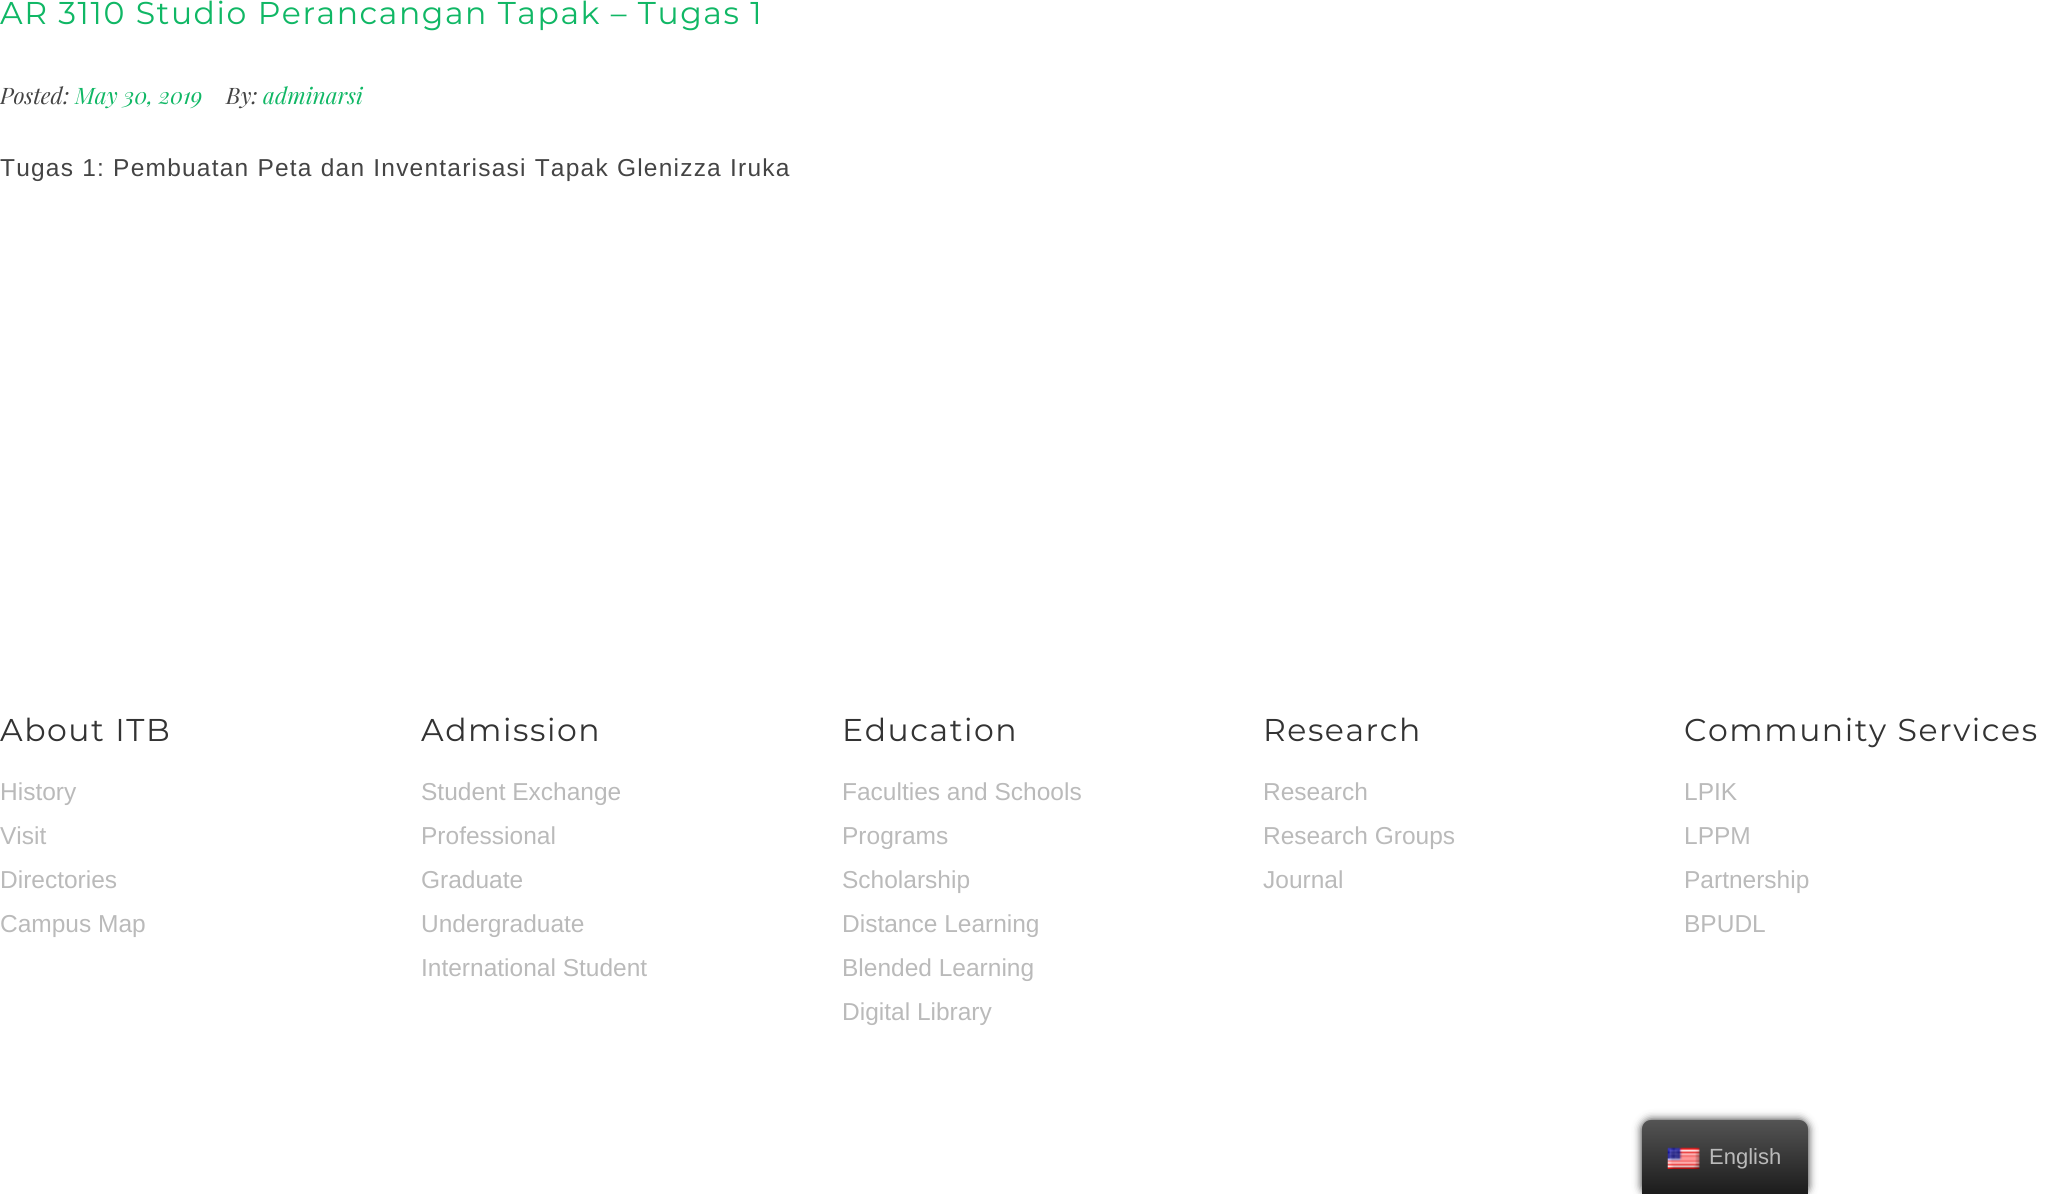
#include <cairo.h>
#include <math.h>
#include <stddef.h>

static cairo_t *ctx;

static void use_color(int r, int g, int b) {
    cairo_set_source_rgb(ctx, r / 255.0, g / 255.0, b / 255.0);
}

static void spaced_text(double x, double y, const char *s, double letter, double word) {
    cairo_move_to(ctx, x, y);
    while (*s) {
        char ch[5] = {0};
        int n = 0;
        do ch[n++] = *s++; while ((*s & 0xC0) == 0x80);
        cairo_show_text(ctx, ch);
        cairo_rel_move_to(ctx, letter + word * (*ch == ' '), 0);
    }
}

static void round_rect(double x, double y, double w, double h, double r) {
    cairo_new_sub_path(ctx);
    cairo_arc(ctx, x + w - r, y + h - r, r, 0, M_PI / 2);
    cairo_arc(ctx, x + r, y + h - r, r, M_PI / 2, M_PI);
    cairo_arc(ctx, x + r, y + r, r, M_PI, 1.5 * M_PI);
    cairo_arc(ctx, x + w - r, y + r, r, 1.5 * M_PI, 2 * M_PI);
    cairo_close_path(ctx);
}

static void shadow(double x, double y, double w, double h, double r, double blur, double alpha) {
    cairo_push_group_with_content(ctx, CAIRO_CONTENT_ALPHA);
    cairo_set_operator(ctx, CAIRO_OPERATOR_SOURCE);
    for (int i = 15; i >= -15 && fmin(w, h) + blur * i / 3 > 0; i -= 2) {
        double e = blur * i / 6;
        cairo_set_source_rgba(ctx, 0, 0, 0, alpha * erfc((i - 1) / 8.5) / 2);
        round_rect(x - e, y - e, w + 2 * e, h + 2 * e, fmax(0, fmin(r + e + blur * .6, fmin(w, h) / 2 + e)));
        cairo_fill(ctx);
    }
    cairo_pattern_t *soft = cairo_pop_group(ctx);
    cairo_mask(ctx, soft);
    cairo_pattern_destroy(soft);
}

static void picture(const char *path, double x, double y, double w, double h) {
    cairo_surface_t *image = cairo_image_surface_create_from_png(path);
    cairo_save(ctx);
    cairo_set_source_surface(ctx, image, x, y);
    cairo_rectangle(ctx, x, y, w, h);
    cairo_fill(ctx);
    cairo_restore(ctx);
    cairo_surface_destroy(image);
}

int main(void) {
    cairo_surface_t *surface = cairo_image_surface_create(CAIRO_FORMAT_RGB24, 2052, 1194);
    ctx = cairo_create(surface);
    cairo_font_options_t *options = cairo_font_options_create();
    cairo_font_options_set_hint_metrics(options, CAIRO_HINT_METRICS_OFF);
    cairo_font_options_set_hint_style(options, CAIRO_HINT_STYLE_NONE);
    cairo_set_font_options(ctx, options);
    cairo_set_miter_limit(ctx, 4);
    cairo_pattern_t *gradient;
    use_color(255, 255, 255);
    cairo_paint(ctx);
    cairo_select_font_face(ctx, "Montserrat", CAIRO_FONT_SLANT_NORMAL, CAIRO_FONT_WEIGHT_NORMAL);
    cairo_set_font_size(ctx, 31.5);
    use_color(16, 183, 101);
    spaced_text(0, 24, "AR 3110 Studio Perancangan Tapak – Tugas 1", 1.55, 0);
    cairo_select_font_face(ctx, "Playfair Display", CAIRO_FONT_SLANT_ITALIC, CAIRO_FONT_WEIGHT_NORMAL);
    cairo_set_font_size(ctx, 22.75);
    use_color(68, 68, 68);
    cairo_move_to(ctx, 0, 104);
    cairo_show_text(ctx, "Posted:");
    use_color(16, 183, 101);
    cairo_move_to(ctx, 75, 104);
    cairo_show_text(ctx, "May 30, 2019");
    use_color(68, 68, 68);
    cairo_move_to(ctx, 226, 104);
    cairo_show_text(ctx, "By:");
    use_color(16, 183, 101);
    cairo_move_to(ctx, 263, 104);
    cairo_show_text(ctx, "adminarsi");
    cairo_select_font_face(ctx, "Liberation Sans", CAIRO_FONT_SLANT_NORMAL, CAIRO_FONT_WEIGHT_NORMAL);
    cairo_set_font_size(ctx, 24.5);
    use_color(68, 68, 68);
    spaced_text(0, 176, "Tugas 1: Pembuatan Peta dan Inventarisasi Tapak Glenizza Iruka", 1.22, 0);
    cairo_select_font_face(ctx, "Montserrat", CAIRO_FONT_SLANT_NORMAL, CAIRO_FONT_WEIGHT_NORMAL);
    cairo_set_font_size(ctx, 31.5);
    use_color(51, 51, 51);
    spaced_text(0, 741, "About ITB", 1.55, 0);
    cairo_select_font_face(ctx, "Liberation Sans", CAIRO_FONT_SLANT_NORMAL, CAIRO_FONT_WEIGHT_NORMAL);
    cairo_set_font_size(ctx, 24.5);
    use_color(186, 186, 186);
    cairo_move_to(ctx, 0, 800);
    cairo_show_text(ctx, "History");
    cairo_move_to(ctx, 0, 844);
    cairo_show_text(ctx, "Visit");
    cairo_move_to(ctx, 0, 888);
    cairo_show_text(ctx, "Directories");
    cairo_move_to(ctx, 0, 932);
    cairo_show_text(ctx, "Campus Map");
    cairo_select_font_face(ctx, "Montserrat", CAIRO_FONT_SLANT_NORMAL, CAIRO_FONT_WEIGHT_NORMAL);
    cairo_set_font_size(ctx, 31.5);
    use_color(51, 51, 51);
    spaced_text(421, 741, "Admission", 1.55, 0);
    cairo_select_font_face(ctx, "Liberation Sans", CAIRO_FONT_SLANT_NORMAL, CAIRO_FONT_WEIGHT_NORMAL);
    cairo_set_font_size(ctx, 24.5);
    use_color(186, 186, 186);
    cairo_move_to(ctx, 421, 800);
    cairo_show_text(ctx, "Student Exchange");
    cairo_move_to(ctx, 421, 844);
    cairo_show_text(ctx, "Professional");
    cairo_move_to(ctx, 421, 888);
    cairo_show_text(ctx, "Graduate");
    cairo_move_to(ctx, 421, 932);
    cairo_show_text(ctx, "Undergraduate");
    cairo_move_to(ctx, 421, 976);
    cairo_show_text(ctx, "International Student");
    cairo_select_font_face(ctx, "Montserrat", CAIRO_FONT_SLANT_NORMAL, CAIRO_FONT_WEIGHT_NORMAL);
    cairo_set_font_size(ctx, 31.5);
    use_color(51, 51, 51);
    spaced_text(842, 741, "Education", 1.55, 0);
    cairo_select_font_face(ctx, "Liberation Sans", CAIRO_FONT_SLANT_NORMAL, CAIRO_FONT_WEIGHT_NORMAL);
    cairo_set_font_size(ctx, 24.5);
    use_color(186, 186, 186);
    cairo_move_to(ctx, 842, 800);
    cairo_show_text(ctx, "Faculties and Schools");
    cairo_move_to(ctx, 842, 844);
    cairo_show_text(ctx, "Programs");
    cairo_move_to(ctx, 842, 888);
    cairo_show_text(ctx, "Scholarship");
    cairo_move_to(ctx, 842, 932);
    cairo_show_text(ctx, "Distance Learning");
    cairo_move_to(ctx, 842, 976);
    cairo_show_text(ctx, "Blended Learning");
    cairo_move_to(ctx, 842, 1020);
    cairo_show_text(ctx, "Digital Library");
    cairo_select_font_face(ctx, "Montserrat", CAIRO_FONT_SLANT_NORMAL, CAIRO_FONT_WEIGHT_NORMAL);
    cairo_set_font_size(ctx, 31.5);
    use_color(51, 51, 51);
    spaced_text(1263, 741, "Research", 1.55, 0);
    cairo_select_font_face(ctx, "Liberation Sans", CAIRO_FONT_SLANT_NORMAL, CAIRO_FONT_WEIGHT_NORMAL);
    cairo_set_font_size(ctx, 24.5);
    use_color(186, 186, 186);
    cairo_move_to(ctx, 1263, 800);
    cairo_show_text(ctx, "Research");
    cairo_move_to(ctx, 1263, 844);
    cairo_show_text(ctx, "Research Groups");
    cairo_move_to(ctx, 1263, 888);
    cairo_show_text(ctx, "Journal");
    cairo_select_font_face(ctx, "Montserrat", CAIRO_FONT_SLANT_NORMAL, CAIRO_FONT_WEIGHT_NORMAL);
    cairo_set_font_size(ctx, 31.5);
    use_color(51, 51, 51);
    spaced_text(1684, 741, "Community Services", 1.55, 0);
    cairo_select_font_face(ctx, "Liberation Sans", CAIRO_FONT_SLANT_NORMAL, CAIRO_FONT_WEIGHT_NORMAL);
    cairo_set_font_size(ctx, 24.5);
    use_color(186, 186, 186);
    cairo_move_to(ctx, 1684, 800);
    cairo_show_text(ctx, "LPIK");
    cairo_move_to(ctx, 1684, 844);
    cairo_show_text(ctx, "LPPM");
    cairo_move_to(ctx, 1684, 888);
    cairo_show_text(ctx, "Partnership");
    cairo_move_to(ctx, 1684, 932);
    cairo_show_text(ctx, "BPUDL");
    use_color(33, 33, 33);
    shadow(1642, 1120, 166, 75, 9, 4.5, 1);
    gradient = cairo_pattern_create_linear(1725, 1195, 1725, 1120);
    cairo_pattern_add_color_stop_rgba(gradient, 0, 0.106, 0.106, 0.106, 1);
    cairo_pattern_add_color_stop_rgba(gradient, 1, 0.329, 0.329, 0.329, 1);
    cairo_set_source(ctx, gradient);
    cairo_pattern_destroy(gradient);
    cairo_new_path(ctx);
    cairo_move_to(ctx, 1651, 1120);
    cairo_line_to(ctx, 1799, 1120);
    cairo_curve_to(ctx, 1804, 1120, 1808, 1124, 1808, 1129);
    cairo_line_to(ctx, 1808, 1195);
    cairo_line_to(ctx, 1642, 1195);
    cairo_line_to(ctx, 1642, 1129);
    cairo_curve_to(ctx, 1642, 1124, 1646, 1120, 1651, 1120);
    cairo_close_path(ctx);
    cairo_fill(ctx);
    picture("img1.png", 1667, 1147, 33, 22);
    cairo_set_font_size(ctx, 22);
    use_color(186, 186, 186);
    cairo_move_to(ctx, 1709, 1164);
    cairo_show_text(ctx, "English");
    cairo_surface_write_to_png(surface, "result.png");
    cairo_font_options_destroy(options);
    cairo_destroy(ctx);
    cairo_surface_destroy(surface);
    return 0;
}
